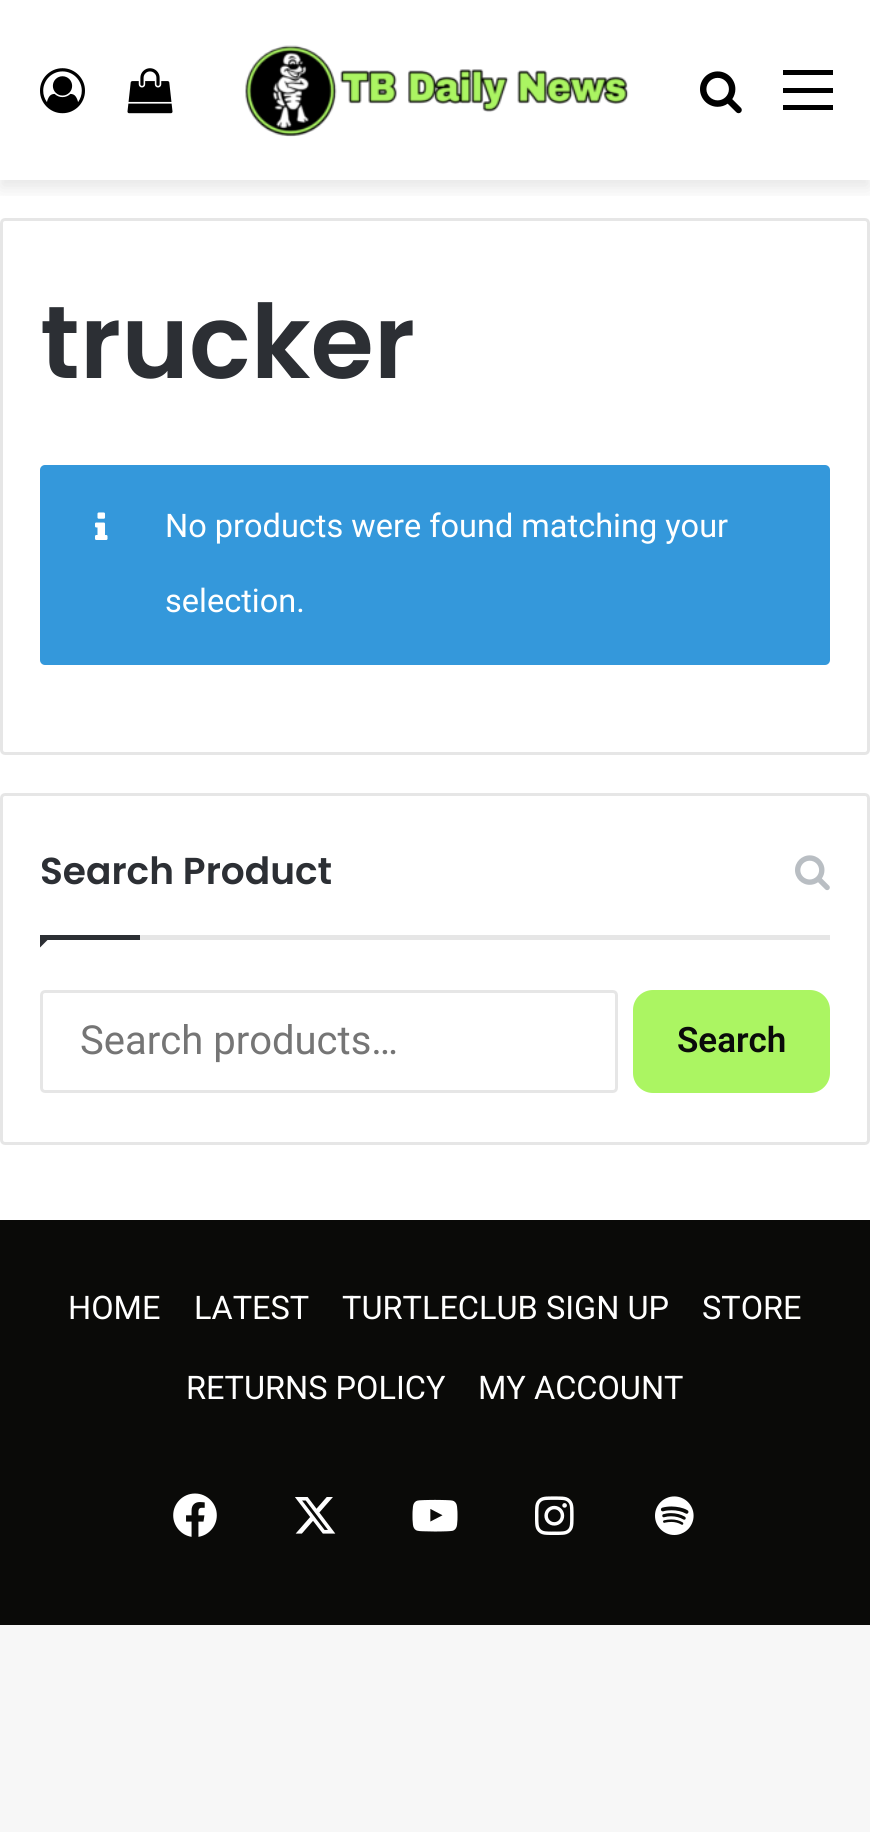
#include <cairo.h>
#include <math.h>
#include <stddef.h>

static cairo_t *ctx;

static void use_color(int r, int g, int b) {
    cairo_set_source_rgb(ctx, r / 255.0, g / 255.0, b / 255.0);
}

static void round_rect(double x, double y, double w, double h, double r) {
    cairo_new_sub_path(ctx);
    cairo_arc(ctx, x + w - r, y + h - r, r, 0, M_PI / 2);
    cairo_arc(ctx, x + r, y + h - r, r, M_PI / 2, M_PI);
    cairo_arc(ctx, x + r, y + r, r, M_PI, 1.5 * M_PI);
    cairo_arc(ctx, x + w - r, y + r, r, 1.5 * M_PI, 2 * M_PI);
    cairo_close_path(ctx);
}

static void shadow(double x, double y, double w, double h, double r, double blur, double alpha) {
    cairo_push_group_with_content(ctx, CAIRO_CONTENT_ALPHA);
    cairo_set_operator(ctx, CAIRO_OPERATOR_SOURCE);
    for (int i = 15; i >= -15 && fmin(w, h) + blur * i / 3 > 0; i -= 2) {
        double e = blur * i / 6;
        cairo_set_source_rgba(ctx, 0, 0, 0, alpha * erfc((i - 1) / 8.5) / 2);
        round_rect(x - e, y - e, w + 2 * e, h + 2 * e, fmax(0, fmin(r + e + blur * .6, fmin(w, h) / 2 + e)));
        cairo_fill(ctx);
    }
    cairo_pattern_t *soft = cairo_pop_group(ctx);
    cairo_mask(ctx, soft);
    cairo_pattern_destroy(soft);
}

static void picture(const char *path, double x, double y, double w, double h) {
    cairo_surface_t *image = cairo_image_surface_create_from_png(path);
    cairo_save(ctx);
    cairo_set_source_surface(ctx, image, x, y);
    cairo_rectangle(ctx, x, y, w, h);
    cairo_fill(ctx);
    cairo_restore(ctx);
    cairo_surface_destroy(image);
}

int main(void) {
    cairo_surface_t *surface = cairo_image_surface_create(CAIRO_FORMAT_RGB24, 870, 1832);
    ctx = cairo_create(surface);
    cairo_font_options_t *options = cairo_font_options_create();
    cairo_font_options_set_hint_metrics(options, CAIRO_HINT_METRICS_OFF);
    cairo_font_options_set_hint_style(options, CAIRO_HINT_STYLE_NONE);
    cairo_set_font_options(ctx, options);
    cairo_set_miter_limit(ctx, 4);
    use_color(247, 247, 247);
    cairo_paint(ctx);
    use_color(255, 255, 255);
    cairo_rectangle(ctx, 0, 0, 870, 1220);
    cairo_fill(ctx);
    cairo_save(ctx);
    cairo_rectangle(ctx, 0, 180, 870, 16);
    cairo_clip(ctx);
    use_color(0, 0, 0);
    shadow(0, 8, 870, 180, 0, 9, 0.1);
    cairo_restore(ctx);
    picture("img1.png", 40, 68, 45, 46);
    picture("img2.png", 127, 68, 46, 46);
    picture("img3.png", 245, 45, 384, 92);
    picture("img4.png", 700, 71, 42, 43);
    use_color(0, 0, 0);
    cairo_rectangle(ctx, 783, 88, 50, 5);
    cairo_fill(ctx);
    cairo_rectangle(ctx, 783, 70, 50, 5);
    cairo_fill(ctx);
    cairo_rectangle(ctx, 783, 105, 50, 5);
    cairo_fill(ctx);
    round_rect(1.5, 219.5, 867, 534, 3.5);
    use_color(230, 230, 230);
    cairo_set_line_width(ctx, 3);
    cairo_stroke(ctx);
    cairo_select_font_face(ctx, "Poppins SemiBold", CAIRO_FONT_SLANT_NORMAL, CAIRO_FONT_WEIGHT_NORMAL);
    cairo_set_font_size(ctx, 102.5);
    use_color(44, 47, 52);
    cairo_move_to(ctx, 40, 378);
    cairo_show_text(ctx, "trucker");
    use_color(52, 152, 219);
    round_rect(40, 465, 790, 200, 5);
    cairo_fill(ctx);
    picture("img5.png", 95, 512, 13, 28);
    cairo_select_font_face(ctx, "Roboto", CAIRO_FONT_SLANT_NORMAL, CAIRO_FONT_WEIGHT_NORMAL);
    cairo_set_font_size(ctx, 32.5);
    use_color(255, 255, 255);
    cairo_move_to(ctx, 165, 537);
    cairo_show_text(ctx, "No products were found matching your");
    cairo_move_to(ctx, 165, 612);
    cairo_show_text(ctx, "selection.");
    round_rect(1.5, 794.5, 867, 349, 3.5);
    use_color(230, 230, 230);
    cairo_stroke(ctx);
    cairo_rectangle(ctx, 140, 935, 690, 5);
    cairo_fill(ctx);
    cairo_select_font_face(ctx, "Poppins SemiBold", CAIRO_FONT_SLANT_NORMAL, CAIRO_FONT_WEIGHT_NORMAL);
    cairo_set_font_size(ctx, 37.5);
    use_color(44, 47, 52);
    cairo_move_to(ctx, 40, 884);
    cairo_show_text(ctx, "Search Product");
    picture("img6.png", 795, 855, 35, 36);
    cairo_new_path(ctx);
    cairo_move_to(ctx, 40, 935);
    cairo_line_to(ctx, 52.5, 935);
    cairo_line_to(ctx, 40, 947.5);
    cairo_close_path(ctx);
    cairo_fill(ctx);
    cairo_rectangle(ctx, 40, 935, 100, 5);
    cairo_fill(ctx);
    round_rect(41.5, 991.5, 575, 100, 3.5);
    use_color(230, 230, 230);
    cairo_stroke(ctx);
    cairo_select_font_face(ctx, "Roboto", CAIRO_FONT_SLANT_NORMAL, CAIRO_FONT_WEIGHT_NORMAL);
    cairo_set_font_size(ctx, 40);
    use_color(117, 117, 117);
    cairo_move_to(ctx, 80, 1054);
    cairo_show_text(ctx, "Search products…");
    use_color(171, 245, 98);
    round_rect(633, 990, 197, 103, 20);
    cairo_fill(ctx);
    cairo_select_font_face(ctx, "Roboto SemiBold", CAIRO_FONT_SLANT_NORMAL, CAIRO_FONT_WEIGHT_NORMAL);
    cairo_set_font_size(ctx, 35);
    use_color(10, 10, 10);
    cairo_move_to(ctx, 677, 1052);
    cairo_show_text(ctx, "Search");
    use_color(10, 10, 8);
    cairo_rectangle(ctx, 0, 1220, 870, 405);
    cairo_fill(ctx);
    cairo_select_font_face(ctx, "Roboto", CAIRO_FONT_SLANT_NORMAL, CAIRO_FONT_WEIGHT_NORMAL);
    cairo_set_font_size(ctx, 32.5);
    use_color(255, 255, 255);
    cairo_move_to(ctx, 68, 1319);
    cairo_show_text(ctx, "HOME");
    cairo_move_to(ctx, 194, 1319);
    cairo_show_text(ctx, "LATEST");
    cairo_move_to(ctx, 342, 1319);
    cairo_show_text(ctx, "TURTLECLUB SIGN UP");
    cairo_move_to(ctx, 702, 1319);
    cairo_show_text(ctx, "STORE");
    cairo_move_to(ctx, 186, 1399);
    cairo_show_text(ctx, "RETURNS POLICY");
    cairo_move_to(ctx, 478, 1399);
    cairo_show_text(ctx, "MY ACCOUNT");
    picture("img7.png", 173, 1493, 44, 44);
    picture("img8.png", 295, 1497, 41, 37);
    picture("img9.png", 412, 1499, 46, 33);
    picture("img10.png", 535, 1496, 39, 39);
    picture("img11.png", 655, 1496, 39, 39);
    cairo_surface_write_to_png(surface, "result.png");
    cairo_font_options_destroy(options);
    cairo_destroy(ctx);
    cairo_surface_destroy(surface);
    return 0;
}
